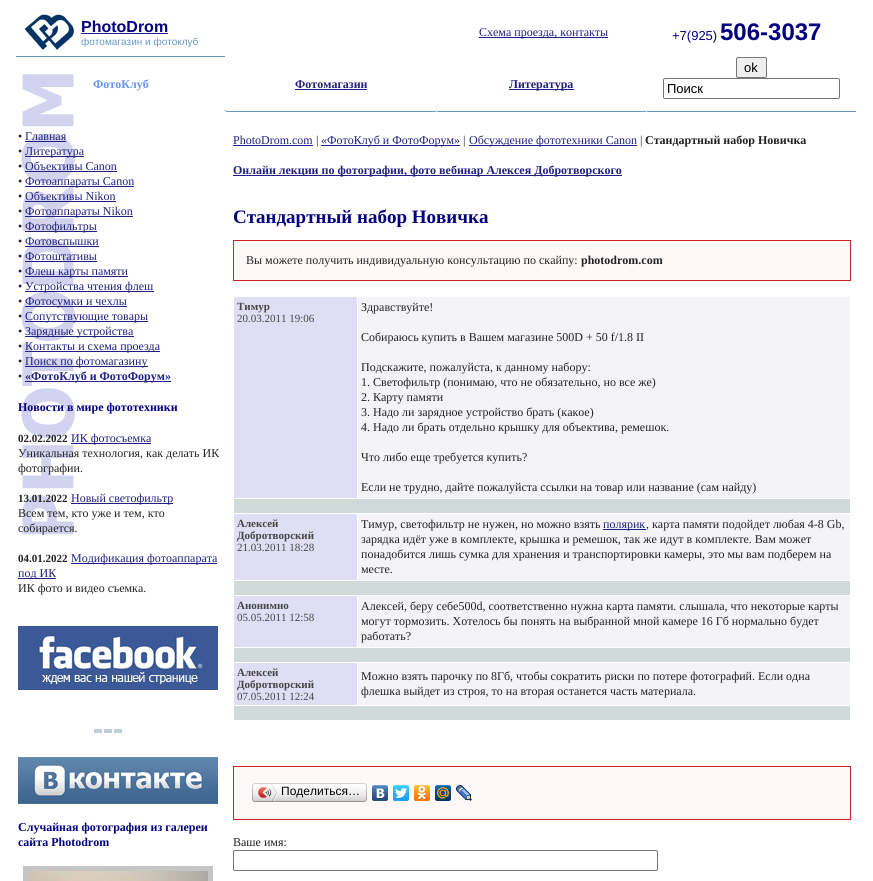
#include <cairo.h>
#include <math.h>
#include <stddef.h>

static cairo_t *ctx;

static void use_color(int r, int g, int b) {
    cairo_set_source_rgb(ctx, r / 255.0, g / 255.0, b / 255.0);
}

static void round_rect(double x, double y, double w, double h, double r) {
    cairo_new_sub_path(ctx);
    cairo_arc(ctx, x + w - r, y + h - r, r, 0, M_PI / 2);
    cairo_arc(ctx, x + r, y + h - r, r, M_PI / 2, M_PI);
    cairo_arc(ctx, x + r, y + r, r, M_PI, 1.5 * M_PI);
    cairo_arc(ctx, x + w - r, y + r, r, 1.5 * M_PI, 2 * M_PI);
    cairo_close_path(ctx);
}

static void picture(const char *path, double x, double y, double w, double h) {
    cairo_surface_t *image = cairo_image_surface_create_from_png(path);
    cairo_save(ctx);
    cairo_set_source_surface(ctx, image, x, y);
    cairo_rectangle(ctx, x, y, w, h);
    cairo_fill(ctx);
    cairo_restore(ctx);
    cairo_surface_destroy(image);
}

int main(void) {
    cairo_surface_t *surface = cairo_image_surface_create(CAIRO_FORMAT_RGB24, 873, 881);
    ctx = cairo_create(surface);
    cairo_font_options_t *options = cairo_font_options_create();
    cairo_font_options_set_hint_metrics(options, CAIRO_HINT_METRICS_OFF);
    cairo_font_options_set_hint_style(options, CAIRO_HINT_STYLE_NONE);
    cairo_set_font_options(ctx, options);
    cairo_set_miter_limit(ctx, 4);
    use_color(255, 255, 255);
    cairo_paint(ctx);
    picture("img1.png", 21, 74, 54, 461);
    picture("img2.png", 24, 14, 50, 36);
    cairo_select_font_face(ctx, "Liberation Sans", CAIRO_FONT_SLANT_NORMAL, CAIRO_FONT_WEIGHT_BOLD);
    cairo_set_font_size(ctx, 16);
    use_color(0, 0, 128);
    cairo_move_to(ctx, 81, 32);
    cairo_show_text(ctx, "PhotoDrom");
    use_color(32, 32, 128);
    cairo_rectangle(ctx, 81, 33, 87, 1);
    cairo_fill(ctx);
    cairo_select_font_face(ctx, "Liberation Sans", CAIRO_FONT_SLANT_NORMAL, CAIRO_FONT_WEIGHT_NORMAL);
    cairo_set_font_size(ctx, 10);
    use_color(102, 153, 204);
    cairo_move_to(ctx, 81, 45);
    cairo_show_text(ctx, "фотомагазин и фотоклуб");
    use_color(32, 32, 128);
    cairo_rectangle(ctx, 479, 37, 129, 1);
    cairo_fill(ctx);
    cairo_select_font_face(ctx, "Liberation Serif", CAIRO_FONT_SLANT_NORMAL, CAIRO_FONT_WEIGHT_NORMAL);
    cairo_set_font_size(ctx, 12);
    cairo_move_to(ctx, 479, 36);
    cairo_show_text(ctx, "Схема проезда, контакты");
    cairo_select_font_face(ctx, "Liberation Sans", CAIRO_FONT_SLANT_NORMAL, CAIRO_FONT_WEIGHT_NORMAL);
    cairo_set_font_size(ctx, 13);
    use_color(0, 0, 128);
    cairo_move_to(ctx, 672, 40);
    cairo_show_text(ctx, "+7(925)");
    cairo_select_font_face(ctx, "Liberation Sans", CAIRO_FONT_SLANT_NORMAL, CAIRO_FONT_WEIGHT_BOLD);
    cairo_set_font_size(ctx, 24);
    cairo_move_to(ctx, 720, 40);
    cairo_show_text(ctx, "506-3037");
    use_color(102, 153, 204);
    cairo_rectangle(ctx, 16, 56, 209, 1);
    cairo_fill(ctx);
    cairo_select_font_face(ctx, "Liberation Serif", CAIRO_FONT_SLANT_NORMAL, CAIRO_FONT_WEIGHT_BOLD);
    cairo_set_font_size(ctx, 12);
    use_color(100, 149, 237);
    cairo_move_to(ctx, 93, 88);
    cairo_show_text(ctx, "ФотоКлуб");
    use_color(32, 32, 128);
    cairo_move_to(ctx, 295, 88);
    cairo_show_text(ctx, "Фотомагазин");
    cairo_rectangle(ctx, 295, 89, 72, 1);
    cairo_fill(ctx);
    cairo_rectangle(ctx, 509, 89, 65, 1);
    cairo_fill(ctx);
    cairo_move_to(ctx, 509, 88);
    cairo_show_text(ctx, "Литература");
    use_color(239, 239, 239);
    round_rect(736.5, 57.5, 30, 20, 1.5);
    cairo_fill_preserve(ctx);
    use_color(118, 118, 118);
    cairo_set_line_width(ctx, 1);
    cairo_stroke(ctx);
    cairo_select_font_face(ctx, "Liberation Sans", CAIRO_FONT_SLANT_NORMAL, CAIRO_FONT_WEIGHT_NORMAL);
    cairo_set_font_size(ctx, 13);
    use_color(0, 0, 0);
    cairo_move_to(ctx, 744, 72);
    cairo_show_text(ctx, "ok");
    round_rect(663.5, 78.5, 176, 20, 1.5);
    use_color(118, 118, 118);
    cairo_stroke(ctx);
    use_color(0, 0, 0);
    cairo_move_to(ctx, 667, 93);
    cairo_show_text(ctx, "Поиск");
    use_color(102, 153, 204);
    cairo_rectangle(ctx, 225, 110, 1, 1);
    cairo_fill(ctx);
    cairo_rectangle(ctx, 226, 111, 210, 1);
    cairo_fill(ctx);
    cairo_rectangle(ctx, 437, 111, 209, 1);
    cairo_fill(ctx);
    cairo_rectangle(ctx, 647, 111, 209, 1);
    cairo_fill(ctx);
    cairo_select_font_face(ctx, "Liberation Serif", CAIRO_FONT_SLANT_NORMAL, CAIRO_FONT_WEIGHT_NORMAL);
    cairo_set_font_size(ctx, 12);
    use_color(34, 34, 34);
    cairo_move_to(ctx, 18, 140);
    cairo_show_text(ctx, "•");
    use_color(32, 32, 128);
    cairo_move_to(ctx, 25, 140);
    cairo_show_text(ctx, "Главная");
    cairo_rectangle(ctx, 25, 141, 41, 1);
    cairo_fill(ctx);
    use_color(34, 34, 34);
    cairo_move_to(ctx, 18, 155);
    cairo_show_text(ctx, "•");
    use_color(32, 32, 128);
    cairo_rectangle(ctx, 25, 156, 59, 1);
    cairo_fill(ctx);
    cairo_move_to(ctx, 25, 155);
    cairo_show_text(ctx, "Литература");
    use_color(34, 34, 34);
    cairo_move_to(ctx, 18, 170);
    cairo_show_text(ctx, "•");
    use_color(32, 32, 128);
    cairo_move_to(ctx, 25, 170);
    cairo_show_text(ctx, "Объективы Canon");
    cairo_rectangle(ctx, 25, 171, 92, 1);
    cairo_fill(ctx);
    use_color(34, 34, 34);
    cairo_move_to(ctx, 18, 185);
    cairo_show_text(ctx, "•");
    use_color(32, 32, 128);
    cairo_rectangle(ctx, 25, 186, 109, 1);
    cairo_fill(ctx);
    cairo_move_to(ctx, 25, 185);
    cairo_show_text(ctx, "Фотоаппараты Canon");
    use_color(34, 34, 34);
    cairo_move_to(ctx, 18, 200);
    cairo_show_text(ctx, "•");
    use_color(32, 32, 128);
    cairo_move_to(ctx, 25, 200);
    cairo_show_text(ctx, "Объективы Nikon");
    cairo_rectangle(ctx, 25, 201, 91, 1);
    cairo_fill(ctx);
    use_color(34, 34, 34);
    cairo_move_to(ctx, 18, 215);
    cairo_show_text(ctx, "•");
    use_color(32, 32, 128);
    cairo_rectangle(ctx, 25, 216, 108, 1);
    cairo_fill(ctx);
    cairo_move_to(ctx, 25, 215);
    cairo_show_text(ctx, "Фотоаппараты Nikon");
    use_color(34, 34, 34);
    cairo_move_to(ctx, 18, 230);
    cairo_show_text(ctx, "•");
    use_color(32, 32, 128);
    cairo_rectangle(ctx, 25, 231, 72, 1);
    cairo_fill(ctx);
    cairo_move_to(ctx, 25, 230);
    cairo_show_text(ctx, "Фотофильтры");
    use_color(34, 34, 34);
    cairo_move_to(ctx, 18, 245);
    cairo_show_text(ctx, "•");
    use_color(32, 32, 128);
    cairo_move_to(ctx, 25, 245);
    cairo_show_text(ctx, "Фотовспышки");
    cairo_rectangle(ctx, 25, 246, 74, 1);
    cairo_fill(ctx);
    use_color(34, 34, 34);
    cairo_move_to(ctx, 18, 260);
    cairo_show_text(ctx, "•");
    use_color(32, 32, 128);
    cairo_move_to(ctx, 25, 260);
    cairo_show_text(ctx, "Фотоштативы");
    cairo_rectangle(ctx, 25, 261, 72, 1);
    cairo_fill(ctx);
    use_color(34, 34, 34);
    cairo_move_to(ctx, 18, 275);
    cairo_show_text(ctx, "•");
    use_color(32, 32, 128);
    cairo_rectangle(ctx, 25, 276, 103, 1);
    cairo_fill(ctx);
    cairo_move_to(ctx, 25, 275);
    cairo_show_text(ctx, "Флеш карты памяти");
    use_color(34, 34, 34);
    cairo_move_to(ctx, 18, 290);
    cairo_show_text(ctx, "•");
    use_color(32, 32, 128);
    cairo_rectangle(ctx, 25, 291, 129, 1);
    cairo_fill(ctx);
    cairo_move_to(ctx, 25, 290);
    cairo_show_text(ctx, "Устройства чтения флеш");
    use_color(34, 34, 34);
    cairo_move_to(ctx, 18, 305);
    cairo_show_text(ctx, "•");
    use_color(32, 32, 128);
    cairo_rectangle(ctx, 25, 306, 102, 1);
    cairo_fill(ctx);
    cairo_move_to(ctx, 25, 305);
    cairo_show_text(ctx, "Фотосумки и чехлы");
    use_color(34, 34, 34);
    cairo_move_to(ctx, 18, 320);
    cairo_show_text(ctx, "•");
    use_color(32, 32, 128);
    cairo_rectangle(ctx, 25, 321, 123, 1);
    cairo_fill(ctx);
    cairo_move_to(ctx, 25, 320);
    cairo_show_text(ctx, "Сопутствующие товары");
    use_color(34, 34, 34);
    cairo_move_to(ctx, 18, 335);
    cairo_show_text(ctx, "•");
    use_color(32, 32, 128);
    cairo_rectangle(ctx, 25, 336, 109, 1);
    cairo_fill(ctx);
    cairo_move_to(ctx, 25, 335);
    cairo_show_text(ctx, "Зарядные устройства");
    use_color(34, 34, 34);
    cairo_move_to(ctx, 18, 350);
    cairo_show_text(ctx, "•");
    use_color(32, 32, 128);
    cairo_rectangle(ctx, 25, 351, 135, 1);
    cairo_fill(ctx);
    cairo_move_to(ctx, 25, 350);
    cairo_show_text(ctx, "Контакты и схема проезда");
    use_color(34, 34, 34);
    cairo_move_to(ctx, 18, 365);
    cairo_show_text(ctx, "•");
    use_color(32, 32, 128);
    cairo_rectangle(ctx, 25, 366, 123, 1);
    cairo_fill(ctx);
    cairo_move_to(ctx, 25, 365);
    cairo_show_text(ctx, "Поиск по фотомагазину");
    use_color(34, 34, 34);
    cairo_move_to(ctx, 18, 380);
    cairo_show_text(ctx, "•");
    use_color(32, 32, 128);
    cairo_rectangle(ctx, 25, 381, 146, 1);
    cairo_fill(ctx);
    cairo_select_font_face(ctx, "Liberation Serif", CAIRO_FONT_SLANT_NORMAL, CAIRO_FONT_WEIGHT_BOLD);
    cairo_move_to(ctx, 25, 380);
    cairo_show_text(ctx, "«ФотоКлуб и ФотоФорум»");
    use_color(0, 0, 128);
    cairo_move_to(ctx, 18, 411);
    cairo_show_text(ctx, "Новости в мире фототехники");
    cairo_set_font_size(ctx, 11);
    use_color(34, 34, 34);
    cairo_move_to(ctx, 18, 442);
    cairo_show_text(ctx, "02.02.2022");
    use_color(32, 32, 128);
    cairo_rectangle(ctx, 71, 443, 80, 1);
    cairo_fill(ctx);
    cairo_select_font_face(ctx, "Liberation Serif", CAIRO_FONT_SLANT_NORMAL, CAIRO_FONT_WEIGHT_NORMAL);
    cairo_set_font_size(ctx, 12);
    cairo_move_to(ctx, 71, 442);
    cairo_show_text(ctx, "ИК фотосъемка");
    use_color(34, 34, 34);
    cairo_move_to(ctx, 18, 457);
    cairo_show_text(ctx, "Уникальная технология, как делать ИК");
    cairo_move_to(ctx, 18, 472);
    cairo_show_text(ctx, "фотографии.");
    cairo_select_font_face(ctx, "Liberation Serif", CAIRO_FONT_SLANT_NORMAL, CAIRO_FONT_WEIGHT_BOLD);
    cairo_set_font_size(ctx, 11);
    cairo_move_to(ctx, 18, 502);
    cairo_show_text(ctx, "13.01.2022");
    use_color(32, 32, 128);
    cairo_rectangle(ctx, 71, 503, 102, 1);
    cairo_fill(ctx);
    cairo_select_font_face(ctx, "Liberation Serif", CAIRO_FONT_SLANT_NORMAL, CAIRO_FONT_WEIGHT_NORMAL);
    cairo_set_font_size(ctx, 12);
    cairo_move_to(ctx, 71, 502);
    cairo_show_text(ctx, "Новый светофильтр");
    use_color(34, 34, 34);
    cairo_move_to(ctx, 18, 517);
    cairo_show_text(ctx, "Всем тем, кто уже и тем, кто");
    cairo_move_to(ctx, 18, 532);
    cairo_show_text(ctx, "собирается.");
    cairo_select_font_face(ctx, "Liberation Serif", CAIRO_FONT_SLANT_NORMAL, CAIRO_FONT_WEIGHT_BOLD);
    cairo_set_font_size(ctx, 11);
    cairo_move_to(ctx, 18, 562);
    cairo_show_text(ctx, "04.01.2022");
    use_color(32, 32, 128);
    cairo_rectangle(ctx, 71, 563, 146, 1);
    cairo_fill(ctx);
    cairo_select_font_face(ctx, "Liberation Serif", CAIRO_FONT_SLANT_NORMAL, CAIRO_FONT_WEIGHT_NORMAL);
    cairo_set_font_size(ctx, 12);
    cairo_move_to(ctx, 71, 562);
    cairo_show_text(ctx, "Модификация фотоаппарата");
    cairo_rectangle(ctx, 18, 578, 38, 1);
    cairo_fill(ctx);
    cairo_move_to(ctx, 18, 577);
    cairo_show_text(ctx, "под ИК");
    use_color(34, 34, 34);
    cairo_move_to(ctx, 18, 592);
    cairo_show_text(ctx, "ИК фото и видео съемка.");
    picture("img3.png", 18, 626, 200, 64);
    picture("img4.png", 94, 729, 28, 4);
    picture("img5.png", 18, 757, 200, 47);
    cairo_select_font_face(ctx, "Liberation Serif", CAIRO_FONT_SLANT_NORMAL, CAIRO_FONT_WEIGHT_BOLD);
    use_color(0, 0, 128);
    cairo_move_to(ctx, 18, 831);
    cairo_show_text(ctx, "Случайная фотография из галереи");
    cairo_move_to(ctx, 18, 846);
    cairo_show_text(ctx, "сайта Photodrom");
    cairo_rectangle(ctx, 25.5, 868.5, 185, 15);
    use_color(197, 197, 197);
    cairo_set_line_width(ctx, 5);
    cairo_stroke(ctx);
    picture("img6.png", 28, 871, 180, 10);
    cairo_select_font_face(ctx, "Liberation Serif", CAIRO_FONT_SLANT_NORMAL, CAIRO_FONT_WEIGHT_NORMAL);
    use_color(32, 32, 128);
    cairo_move_to(ctx, 233, 144);
    cairo_show_text(ctx, "PhotoDrom.com");
    cairo_rectangle(ctx, 233, 145, 80, 1);
    cairo_fill(ctx);
    use_color(34, 34, 34);
    cairo_move_to(ctx, 316, 144);
    cairo_show_text(ctx, "|");
    use_color(32, 32, 128);
    cairo_rectangle(ctx, 321, 145, 139, 1);
    cairo_fill(ctx);
    cairo_move_to(ctx, 321, 144);
    cairo_show_text(ctx, "«ФотоКлуб и ФотоФорум»");
    use_color(34, 34, 34);
    cairo_move_to(ctx, 463, 144);
    cairo_show_text(ctx, "|");
    use_color(32, 32, 128);
    cairo_rectangle(ctx, 469, 145, 168, 1);
    cairo_fill(ctx);
    cairo_move_to(ctx, 469, 144);
    cairo_show_text(ctx, "Обсуждение фототехники Canon");
    use_color(34, 34, 34);
    cairo_move_to(ctx, 640, 144);
    cairo_show_text(ctx, "|");
    cairo_select_font_face(ctx, "Liberation Serif", CAIRO_FONT_SLANT_NORMAL, CAIRO_FONT_WEIGHT_BOLD);
    cairo_move_to(ctx, 645, 144);
    cairo_show_text(ctx, "Стандартный набор Новичка");
    use_color(32, 32, 128);
    cairo_rectangle(ctx, 233, 175, 389, 1);
    cairo_fill(ctx);
    cairo_move_to(ctx, 233, 174);
    cairo_show_text(ctx, "Онлайн лекции по фотографии, фото вебинар Алексея Добротворского");
    cairo_set_font_size(ctx, 19);
    use_color(0, 0, 128);
    cairo_move_to(ctx, 233, 223);
    cairo_show_text(ctx, "Стандартный набор Новичка");
    use_color(254, 248, 248);
    cairo_rectangle(ctx, 233.5, 240.5, 617, 40);
    cairo_fill_preserve(ctx);
    use_color(201, 36, 35);
    cairo_set_line_width(ctx, 1);
    cairo_stroke(ctx);
    cairo_select_font_face(ctx, "Liberation Serif", CAIRO_FONT_SLANT_NORMAL, CAIRO_FONT_WEIGHT_NORMAL);
    cairo_set_font_size(ctx, 12);
    use_color(34, 34, 34);
    cairo_move_to(ctx, 246, 264);
    cairo_show_text(ctx, "Вы можете получить индивидуальную консультацию по скайпу:");
    cairo_select_font_face(ctx, "Liberation Serif", CAIRO_FONT_SLANT_NORMAL, CAIRO_FONT_WEIGHT_BOLD);
    cairo_move_to(ctx, 581, 264);
    cairo_show_text(ctx, "photodrom.com");
    use_color(223, 222, 244);
    cairo_rectangle(ctx, 234, 297, 123, 201);
    cairo_fill(ctx);
    cairo_set_font_size(ctx, 11);
    use_color(70, 70, 70);
    cairo_move_to(ctx, 237, 310);
    cairo_show_text(ctx, "Тимур");
    cairo_select_font_face(ctx, "Liberation Serif", CAIRO_FONT_SLANT_NORMAL, CAIRO_FONT_WEIGHT_NORMAL);
    cairo_move_to(ctx, 237, 322);
    cairo_show_text(ctx, "20.03.2011 19:06");
    use_color(244, 244, 248);
    cairo_rectangle(ctx, 358, 297, 492, 201);
    cairo_fill(ctx);
    cairo_set_font_size(ctx, 12);
    use_color(34, 34, 34);
    cairo_move_to(ctx, 361, 311);
    cairo_show_text(ctx, "Здравствуйте!");
    cairo_move_to(ctx, 361, 341);
    cairo_show_text(ctx, "Собираюсь купить в Вашем магазине 500D + 50 f/1.8 II");
    cairo_move_to(ctx, 361, 371);
    cairo_show_text(ctx, "Подскажите, пожалуйста, к данному набору:");
    cairo_move_to(ctx, 361, 386);
    cairo_show_text(ctx, "1. Светофильтр (понимаю, что не обязательно, но все же)");
    cairo_move_to(ctx, 361, 401);
    cairo_show_text(ctx, "2. Карту памяти");
    cairo_move_to(ctx, 361, 416);
    cairo_show_text(ctx, "3. Надо ли зарядное устройство брать (какое)");
    cairo_move_to(ctx, 361, 431);
    cairo_show_text(ctx, "4. Надо ли брать отдельно крышку для объектива, ремешок.");
    cairo_move_to(ctx, 361, 461);
    cairo_show_text(ctx, "Что либо еще требуется купить?");
    cairo_move_to(ctx, 361, 491);
    cairo_show_text(ctx, "Если не трудно, дайте пожалуйста ссылки на товар или название (сам найду)");
    use_color(209, 218, 218);
    cairo_rectangle(ctx, 234, 499, 616, 14);
    cairo_fill(ctx);
    use_color(223, 222, 244);
    cairo_rectangle(ctx, 234, 514, 123, 66);
    cairo_fill(ctx);
    cairo_select_font_face(ctx, "Liberation Serif", CAIRO_FONT_SLANT_NORMAL, CAIRO_FONT_WEIGHT_BOLD);
    cairo_set_font_size(ctx, 11);
    use_color(70, 70, 70);
    cairo_move_to(ctx, 237, 527);
    cairo_show_text(ctx, "Алексей");
    cairo_move_to(ctx, 237, 539);
    cairo_show_text(ctx, "Добротворский");
    cairo_select_font_face(ctx, "Liberation Serif", CAIRO_FONT_SLANT_NORMAL, CAIRO_FONT_WEIGHT_NORMAL);
    cairo_move_to(ctx, 237, 551);
    cairo_show_text(ctx, "21.03.2011 18:28");
    use_color(244, 244, 248);
    cairo_rectangle(ctx, 358, 514, 492, 66);
    cairo_fill(ctx);
    cairo_set_font_size(ctx, 12);
    use_color(34, 34, 34);
    cairo_move_to(ctx, 361, 528);
    cairo_show_text(ctx, "Тимур, светофильтр не нужен, но можно взять");
    use_color(32, 32, 128);
    cairo_rectangle(ctx, 603, 529, 43, 1);
    cairo_fill(ctx);
    cairo_move_to(ctx, 603, 528);
    cairo_show_text(ctx, "полярик");
    use_color(34, 34, 34);
    cairo_move_to(ctx, 646, 528);
    cairo_show_text(ctx, ", карта памяти подойдет любая 4-8 Gb,");
    cairo_move_to(ctx, 361, 543);
    cairo_show_text(ctx, "зарядка идёт уже в комплекте, крышка и ремешок, так же идут в комплекте. Вам может");
    cairo_move_to(ctx, 361, 558);
    cairo_show_text(ctx, "понадобится лишь сумка для хранения и транспортировки камеры, это мы вам подберем на");
    cairo_move_to(ctx, 361, 573);
    cairo_show_text(ctx, "месте.");
    use_color(209, 218, 218);
    cairo_rectangle(ctx, 234, 581, 616, 14);
    cairo_fill(ctx);
    use_color(223, 222, 244);
    cairo_rectangle(ctx, 234, 596, 123, 51);
    cairo_fill(ctx);
    cairo_select_font_face(ctx, "Liberation Serif", CAIRO_FONT_SLANT_NORMAL, CAIRO_FONT_WEIGHT_BOLD);
    cairo_set_font_size(ctx, 11);
    use_color(70, 70, 70);
    cairo_move_to(ctx, 237, 609);
    cairo_show_text(ctx, "Анонимно");
    cairo_select_font_face(ctx, "Liberation Serif", CAIRO_FONT_SLANT_NORMAL, CAIRO_FONT_WEIGHT_NORMAL);
    cairo_move_to(ctx, 237, 621);
    cairo_show_text(ctx, "05.05.2011 12:58");
    use_color(244, 244, 248);
    cairo_rectangle(ctx, 358, 596, 492, 51);
    cairo_fill(ctx);
    cairo_set_font_size(ctx, 12);
    use_color(34, 34, 34);
    cairo_move_to(ctx, 361, 610);
    cairo_show_text(ctx, "Алексей, беру себе500d, соответственно нужна карта памяти. слышала, что некоторые карты");
    cairo_move_to(ctx, 361, 625);
    cairo_show_text(ctx, "могут тормозить. Хотелось бы понять на выбранной мной камере 16 Гб нормально будет");
    cairo_move_to(ctx, 361, 640);
    cairo_show_text(ctx, "работать?");
    use_color(209, 218, 218);
    cairo_rectangle(ctx, 234, 648, 616, 14);
    cairo_fill(ctx);
    use_color(223, 222, 244);
    cairo_rectangle(ctx, 234, 663, 123, 42);
    cairo_fill(ctx);
    cairo_select_font_face(ctx, "Liberation Serif", CAIRO_FONT_SLANT_NORMAL, CAIRO_FONT_WEIGHT_BOLD);
    cairo_set_font_size(ctx, 11);
    use_color(70, 70, 70);
    cairo_move_to(ctx, 237, 676);
    cairo_show_text(ctx, "Алексей");
    cairo_move_to(ctx, 237, 688);
    cairo_show_text(ctx, "Добротворский");
    cairo_select_font_face(ctx, "Liberation Serif", CAIRO_FONT_SLANT_NORMAL, CAIRO_FONT_WEIGHT_NORMAL);
    cairo_move_to(ctx, 237, 700);
    cairo_show_text(ctx, "07.05.2011 12:24");
    use_color(244, 244, 248);
    cairo_rectangle(ctx, 358, 663, 492, 42);
    cairo_fill(ctx);
    cairo_set_font_size(ctx, 12);
    use_color(34, 34, 34);
    cairo_move_to(ctx, 361, 680);
    cairo_show_text(ctx, "Можно взять парочку по 8Гб, чтобы сократить риски по потере фотографий. Если одна");
    cairo_move_to(ctx, 361, 695);
    cairo_show_text(ctx, "флешка выйдет из строя, то на вторая останется часть материала.");
    use_color(209, 218, 218);
    cairo_rectangle(ctx, 234, 706, 616, 14);
    cairo_fill(ctx);
    use_color(254, 248, 248);
    cairo_rectangle(ctx, 233.5, 766.5, 617, 53);
    cairo_fill_preserve(ctx);
    use_color(201, 36, 35);
    cairo_stroke(ctx);
    picture("img7.png", 255, 783, 109, 19);
    picture("img8.png", 252, 783, 3, 19);
    picture("img9.png", 258, 784, 20, 17);
    cairo_select_font_face(ctx, "Liberation Sans", CAIRO_FONT_SLANT_NORMAL, CAIRO_FONT_WEIGHT_NORMAL);
    use_color(0, 0, 0);
    cairo_move_to(ctx, 281, 795);
    cairo_show_text(ctx, "Поделиться…");
    picture("img10.png", 364, 783, 3, 19);
    picture("img11.png", 372, 785, 16, 16);
    picture("img12.png", 393, 785, 16, 16);
    picture("img13.png", 414, 785, 16, 16);
    picture("img14.png", 435, 785, 16, 16);
    picture("img15.png", 456, 785, 16, 16);
    cairo_select_font_face(ctx, "Liberation Serif", CAIRO_FONT_SLANT_NORMAL, CAIRO_FONT_WEIGHT_NORMAL);
    use_color(34, 34, 34);
    cairo_move_to(ctx, 233, 846);
    cairo_show_text(ctx, "Ваше имя:");
    round_rect(233.5, 850.5, 424, 20, 1.5);
    use_color(118, 118, 118);
    cairo_stroke(ctx);
    cairo_surface_write_to_png(surface, "result.png");
    cairo_font_options_destroy(options);
    cairo_destroy(ctx);
    cairo_surface_destroy(surface);
    return 0;
}
